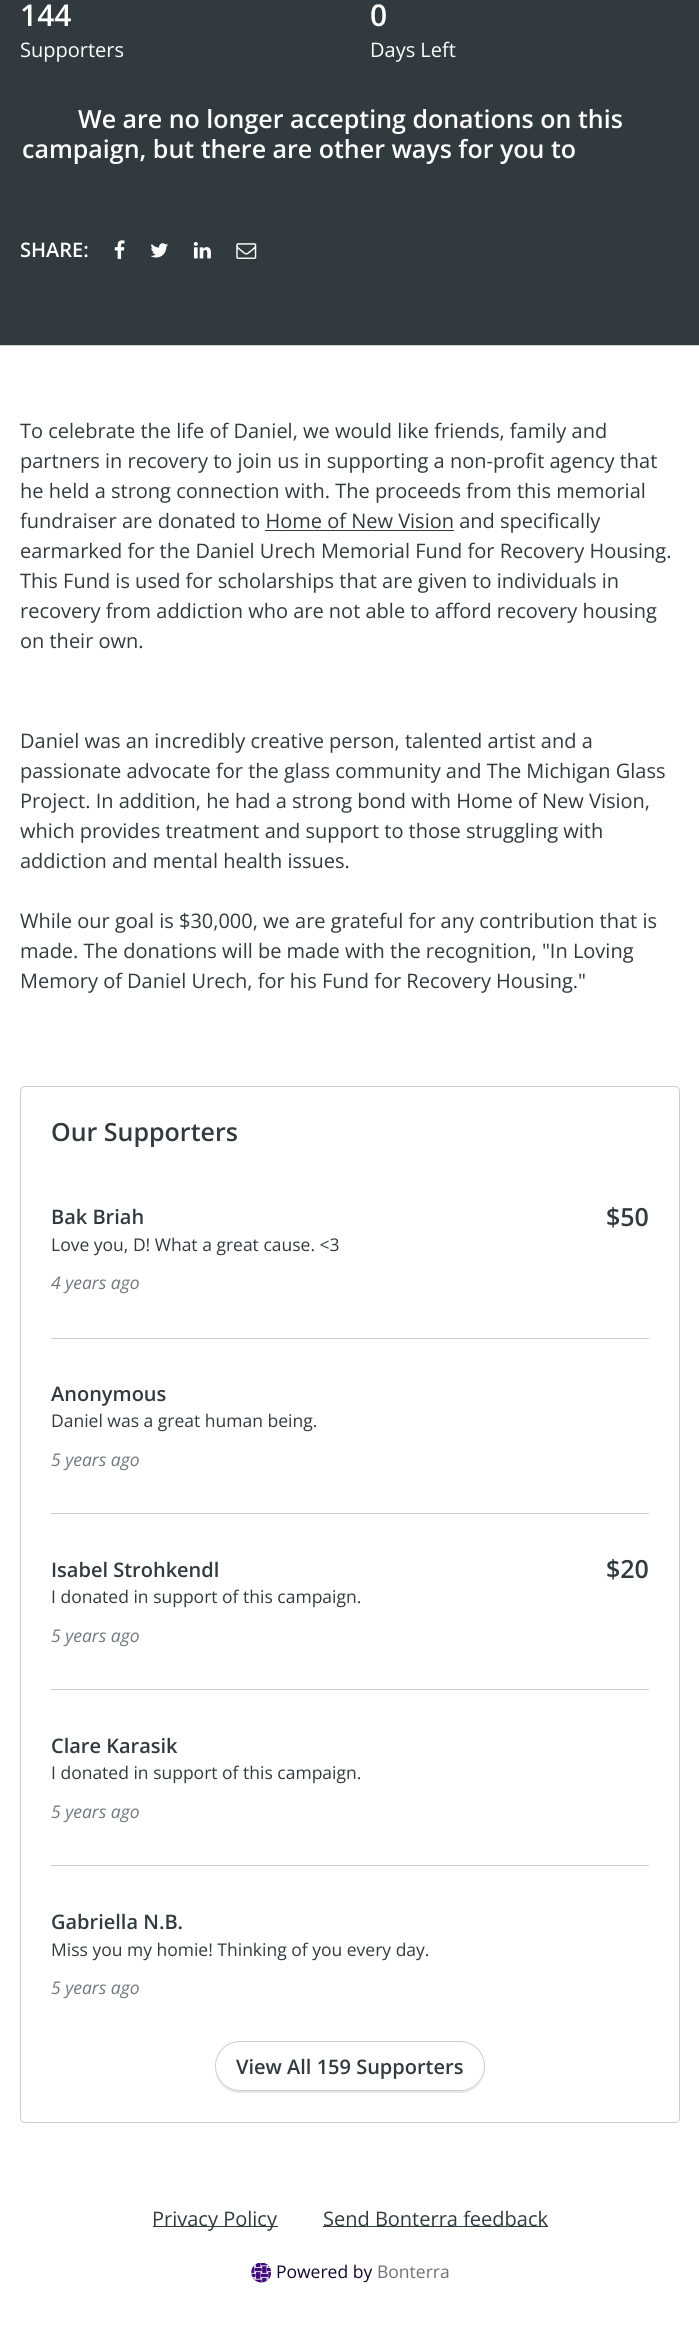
#include <cairo.h>
#include <math.h>
#include <stddef.h>

static cairo_t *ctx;

static void use_color(int r, int g, int b) {
    cairo_set_source_rgb(ctx, r / 255.0, g / 255.0, b / 255.0);
}

static void round_rect(double x, double y, double w, double h, double r) {
    cairo_new_sub_path(ctx);
    cairo_arc(ctx, x + w - r, y + h - r, r, 0, M_PI / 2);
    cairo_arc(ctx, x + r, y + h - r, r, M_PI / 2, M_PI);
    cairo_arc(ctx, x + r, y + r, r, M_PI, 1.5 * M_PI);
    cairo_arc(ctx, x + w - r, y + r, r, 1.5 * M_PI, 2 * M_PI);
    cairo_close_path(ctx);
}

static void picture(const char *path, double x, double y, double w, double h) {
    cairo_surface_t *image = cairo_image_surface_create_from_png(path);
    cairo_save(ctx);
    cairo_set_source_surface(ctx, image, x, y);
    cairo_rectangle(ctx, x, y, w, h);
    cairo_fill(ctx);
    cairo_restore(ctx);
    cairo_surface_destroy(image);
}

int main(void) {
    cairo_surface_t *surface = cairo_image_surface_create(CAIRO_FORMAT_RGB24, 699, 2325);
    ctx = cairo_create(surface);
    cairo_font_options_t *options = cairo_font_options_create();
    cairo_font_options_set_hint_metrics(options, CAIRO_HINT_METRICS_OFF);
    cairo_font_options_set_hint_style(options, CAIRO_HINT_STYLE_NONE);
    cairo_set_font_options(ctx, options);
    cairo_set_miter_limit(ctx, 4);
    use_color(255, 255, 255);
    cairo_paint(ctx);
    use_color(49, 58, 62);
    cairo_rectangle(ctx, 0, 0, 699, 345);
    cairo_fill(ctx);
    cairo_select_font_face(ctx, "Open Sans SemiBold", CAIRO_FONT_SLANT_NORMAL, CAIRO_FONT_WEIGHT_NORMAL);
    cairo_set_font_size(ctx, 30);
    use_color(255, 255, 255);
    cairo_move_to(ctx, 20, 26);
    cairo_show_text(ctx, "144");
    cairo_select_font_face(ctx, "Open Sans", CAIRO_FONT_SLANT_NORMAL, CAIRO_FONT_WEIGHT_NORMAL);
    cairo_set_font_size(ctx, 20);
    cairo_move_to(ctx, 20, 57);
    cairo_show_text(ctx, "Supporters");
    cairo_select_font_face(ctx, "Open Sans SemiBold", CAIRO_FONT_SLANT_NORMAL, CAIRO_FONT_WEIGHT_NORMAL);
    cairo_set_font_size(ctx, 30);
    cairo_move_to(ctx, 370, 26);
    cairo_show_text(ctx, "0");
    cairo_select_font_face(ctx, "Open Sans", CAIRO_FONT_SLANT_NORMAL, CAIRO_FONT_WEIGHT_NORMAL);
    cairo_set_font_size(ctx, 20);
    cairo_move_to(ctx, 370, 57);
    cairo_show_text(ctx, "Days Left");
    cairo_select_font_face(ctx, "Open Sans SemiBold", CAIRO_FONT_SLANT_NORMAL, CAIRO_FONT_WEIGHT_NORMAL);
    cairo_set_font_size(ctx, 25);
    cairo_move_to(ctx, 78, 128);
    cairo_show_text(ctx, "We are no longer accepting donations on this");
    cairo_move_to(ctx, 22, 158);
    cairo_show_text(ctx, "campaign, but there are other ways for you to");
    cairo_set_font_size(ctx, 20);
    cairo_move_to(ctx, 20, 257);
    cairo_show_text(ctx, "SHARE:");
    picture("img1.png", 114, 240, 11, 19);
    picture("img2.png", 150, 243, 18, 15);
    picture("img3.png", 193, 242, 18, 17);
    picture("img4.png", 236, 243, 21, 16);
    use_color(201, 206, 209);
    cairo_rectangle(ctx, 0, 345, 699, 1);
    cairo_fill(ctx);
    cairo_select_font_face(ctx, "Open Sans", CAIRO_FONT_SLANT_NORMAL, CAIRO_FONT_WEIGHT_NORMAL);
    use_color(49, 58, 62);
    cairo_move_to(ctx, 20, 438);
    cairo_show_text(ctx, "To celebrate the life of Daniel, we would like friends, family and");
    cairo_move_to(ctx, 20, 468);
    cairo_show_text(ctx, "partners in recovery to join us in supporting a non-profit agency that");
    cairo_move_to(ctx, 20, 498);
    cairo_show_text(ctx, "he held a strong connection with. The proceeds from this memorial");
    cairo_move_to(ctx, 20, 528);
    cairo_show_text(ctx, "fundraiser are donated to Home of New Vision and specifically");
    cairo_rectangle(ctx, 265, 530, 189, 1);
    cairo_fill(ctx);
    cairo_move_to(ctx, 20, 558);
    cairo_show_text(ctx, "earmarked for the Daniel Urech Memorial Fund for Recovery Housing.");
    cairo_move_to(ctx, 20, 588);
    cairo_show_text(ctx, "This Fund is used for scholarships that are given to individuals in");
    cairo_move_to(ctx, 20, 618);
    cairo_show_text(ctx, "recovery from addiction who are not able to afford recovery housing");
    cairo_move_to(ctx, 20, 648);
    cairo_show_text(ctx, "on their own.");
    cairo_move_to(ctx, 20, 748);
    cairo_show_text(ctx, "Daniel was an incredibly creative person, talented artist and a");
    cairo_move_to(ctx, 20, 778);
    cairo_show_text(ctx, "passionate advocate for the glass community and The Michigan Glass");
    cairo_move_to(ctx, 20, 808);
    cairo_show_text(ctx, "Project. In addition, he had a strong bond with Home of New Vision,");
    cairo_move_to(ctx, 20, 838);
    cairo_show_text(ctx, "which provides treatment and support to those struggling with");
    cairo_move_to(ctx, 20, 868);
    cairo_show_text(ctx, "addiction and mental health issues.");
    cairo_move_to(ctx, 20, 928);
    cairo_show_text(ctx, "While our goal is $30,000, we are grateful for any contribution that is");
    cairo_move_to(ctx, 20, 958);
    cairo_show_text(ctx, "made. The donations will be made with the recognition, \"In Loving");
    cairo_move_to(ctx, 20, 988);
    cairo_show_text(ctx, "Memory of Daniel Urech, for his Fund for Recovery Housing.\"");
    round_rect(20.5, 1086.5, 659, 1036, 4.5);
    use_color(201, 206, 209);
    cairo_set_line_width(ctx, 1);
    cairo_stroke(ctx);
    cairo_select_font_face(ctx, "Open Sans SemiBold", CAIRO_FONT_SLANT_NORMAL, CAIRO_FONT_WEIGHT_NORMAL);
    cairo_set_font_size(ctx, 25);
    use_color(49, 58, 62);
    cairo_move_to(ctx, 51, 1141);
    cairo_show_text(ctx, "Our Supporters");
    cairo_set_font_size(ctx, 20);
    cairo_move_to(ctx, 51, 1224);
    cairo_show_text(ctx, "Bak Briah");
    cairo_set_font_size(ctx, 25);
    cairo_move_to(ctx, 606, 1226);
    cairo_show_text(ctx, "$50");
    cairo_select_font_face(ctx, "Open Sans", CAIRO_FONT_SLANT_NORMAL, CAIRO_FONT_WEIGHT_NORMAL);
    cairo_set_font_size(ctx, 17.5);
    cairo_move_to(ctx, 51, 1251);
    cairo_show_text(ctx, "Love you, D! What a great cause. <3");
    cairo_select_font_face(ctx, "Open Sans", CAIRO_FONT_SLANT_ITALIC, CAIRO_FONT_WEIGHT_NORMAL);
    use_color(112, 120, 124);
    cairo_move_to(ctx, 51, 1289);
    cairo_show_text(ctx, "4 years ago");
    use_color(201, 206, 209);
    cairo_rectangle(ctx, 51, 1338, 598, 1);
    cairo_fill(ctx);
    cairo_select_font_face(ctx, "Open Sans SemiBold", CAIRO_FONT_SLANT_NORMAL, CAIRO_FONT_WEIGHT_NORMAL);
    cairo_set_font_size(ctx, 20);
    use_color(49, 58, 62);
    cairo_move_to(ctx, 51, 1401);
    cairo_show_text(ctx, "Anonymous");
    cairo_select_font_face(ctx, "Open Sans", CAIRO_FONT_SLANT_NORMAL, CAIRO_FONT_WEIGHT_NORMAL);
    cairo_set_font_size(ctx, 17.5);
    cairo_move_to(ctx, 51, 1427);
    cairo_show_text(ctx, "Daniel was a great human being.");
    cairo_select_font_face(ctx, "Open Sans", CAIRO_FONT_SLANT_ITALIC, CAIRO_FONT_WEIGHT_NORMAL);
    use_color(112, 120, 124);
    cairo_move_to(ctx, 51, 1466);
    cairo_show_text(ctx, "5 years ago");
    use_color(201, 206, 209);
    cairo_rectangle(ctx, 51, 1513, 598, 1);
    cairo_fill(ctx);
    cairo_select_font_face(ctx, "Open Sans SemiBold", CAIRO_FONT_SLANT_NORMAL, CAIRO_FONT_WEIGHT_NORMAL);
    cairo_set_font_size(ctx, 20);
    use_color(49, 58, 62);
    cairo_move_to(ctx, 51, 1577);
    cairo_show_text(ctx, "Isabel Strohkendl");
    cairo_set_font_size(ctx, 25);
    cairo_move_to(ctx, 606, 1578);
    cairo_show_text(ctx, "$20");
    cairo_select_font_face(ctx, "Open Sans", CAIRO_FONT_SLANT_NORMAL, CAIRO_FONT_WEIGHT_NORMAL);
    cairo_set_font_size(ctx, 17.5);
    cairo_move_to(ctx, 51, 1603);
    cairo_show_text(ctx, "I donated in support of this campaign.");
    cairo_select_font_face(ctx, "Open Sans", CAIRO_FONT_SLANT_ITALIC, CAIRO_FONT_WEIGHT_NORMAL);
    use_color(112, 120, 124);
    cairo_move_to(ctx, 51, 1642);
    cairo_show_text(ctx, "5 years ago");
    use_color(201, 206, 209);
    cairo_rectangle(ctx, 51, 1689, 598, 1);
    cairo_fill(ctx);
    cairo_select_font_face(ctx, "Open Sans SemiBold", CAIRO_FONT_SLANT_NORMAL, CAIRO_FONT_WEIGHT_NORMAL);
    cairo_set_font_size(ctx, 20);
    use_color(49, 58, 62);
    cairo_move_to(ctx, 51, 1753);
    cairo_show_text(ctx, "Clare Karasik");
    cairo_select_font_face(ctx, "Open Sans", CAIRO_FONT_SLANT_NORMAL, CAIRO_FONT_WEIGHT_NORMAL);
    cairo_set_font_size(ctx, 17.5);
    cairo_move_to(ctx, 51, 1779);
    cairo_show_text(ctx, "I donated in support of this campaign.");
    cairo_select_font_face(ctx, "Open Sans", CAIRO_FONT_SLANT_ITALIC, CAIRO_FONT_WEIGHT_NORMAL);
    use_color(112, 120, 124);
    cairo_move_to(ctx, 51, 1818);
    cairo_show_text(ctx, "5 years ago");
    use_color(201, 206, 209);
    cairo_rectangle(ctx, 51, 1865, 598, 1);
    cairo_fill(ctx);
    cairo_select_font_face(ctx, "Open Sans SemiBold", CAIRO_FONT_SLANT_NORMAL, CAIRO_FONT_WEIGHT_NORMAL);
    cairo_set_font_size(ctx, 20);
    use_color(49, 58, 62);
    cairo_move_to(ctx, 51, 1929);
    cairo_show_text(ctx, "Gabriella N.B.");
    cairo_select_font_face(ctx, "Open Sans", CAIRO_FONT_SLANT_NORMAL, CAIRO_FONT_WEIGHT_NORMAL);
    cairo_set_font_size(ctx, 17.5);
    cairo_move_to(ctx, 51, 1956);
    cairo_show_text(ctx, "Miss you my homie! Thinking of you every day.");
    cairo_select_font_face(ctx, "Open Sans", CAIRO_FONT_SLANT_ITALIC, CAIRO_FONT_WEIGHT_NORMAL);
    use_color(112, 120, 124);
    cairo_move_to(ctx, 51, 1994);
    cairo_show_text(ctx, "5 years ago");
    use_color(230, 230, 230);
    cairo_new_path(ctx);
    cairo_move_to(ctx, 215, 2067);
    cairo_line_to(ctx, 215, 2068);
    cairo_curve_to(ctx, 215, 2082, 226, 2093, 240, 2093);
    cairo_line_to(ctx, 460, 2093);
    cairo_curve_to(ctx, 474, 2093, 485, 2082, 485, 2068);
    cairo_line_to(ctx, 485, 2067);
    cairo_curve_to(ctx, 485, 2081, 474, 2091, 460, 2091);
    cairo_line_to(ctx, 240, 2091);
    cairo_curve_to(ctx, 226, 2091, 215, 2081, 215, 2067);
    cairo_close_path(ctx);
    cairo_fill(ctx);
    use_color(255, 255, 255);
    round_rect(215.5, 2041.5, 269, 49, 24.5);
    cairo_fill_preserve(ctx);
    use_color(201, 206, 209);
    cairo_stroke(ctx);
    cairo_select_font_face(ctx, "Open Sans SemiBold", CAIRO_FONT_SLANT_NORMAL, CAIRO_FONT_WEIGHT_NORMAL);
    cairo_set_font_size(ctx, 20);
    use_color(49, 58, 62);
    cairo_move_to(ctx, 236, 2074);
    cairo_show_text(ctx, "View All 159 Supporters");
    cairo_rectangle(ctx, 153, 2226, 125, 1);
    cairo_fill(ctx);
    cairo_select_font_face(ctx, "Open Sans", CAIRO_FONT_SLANT_NORMAL, CAIRO_FONT_WEIGHT_NORMAL);
    cairo_move_to(ctx, 152, 2226);
    cairo_show_text(ctx, "Privacy Policy");
    cairo_rectangle(ctx, 323, 2226, 225, 1);
    cairo_fill(ctx);
    cairo_move_to(ctx, 323, 2226);
    cairo_show_text(ctx, "Send Bonterra feedback");
    picture("img5.png", 251, 2263, 20, 20);
    cairo_set_font_size(ctx, 17.5);
    use_color(20, 2, 45);
    cairo_move_to(ctx, 276, 2278);
    cairo_show_text(ctx, "Powered by");
    use_color(114, 111, 118);
    cairo_move_to(ctx, 377, 2278);
    cairo_show_text(ctx, "Bonterra");
    cairo_surface_write_to_png(surface, "result.png");
    cairo_font_options_destroy(options);
    cairo_destroy(ctx);
    cairo_surface_destroy(surface);
    return 0;
}
